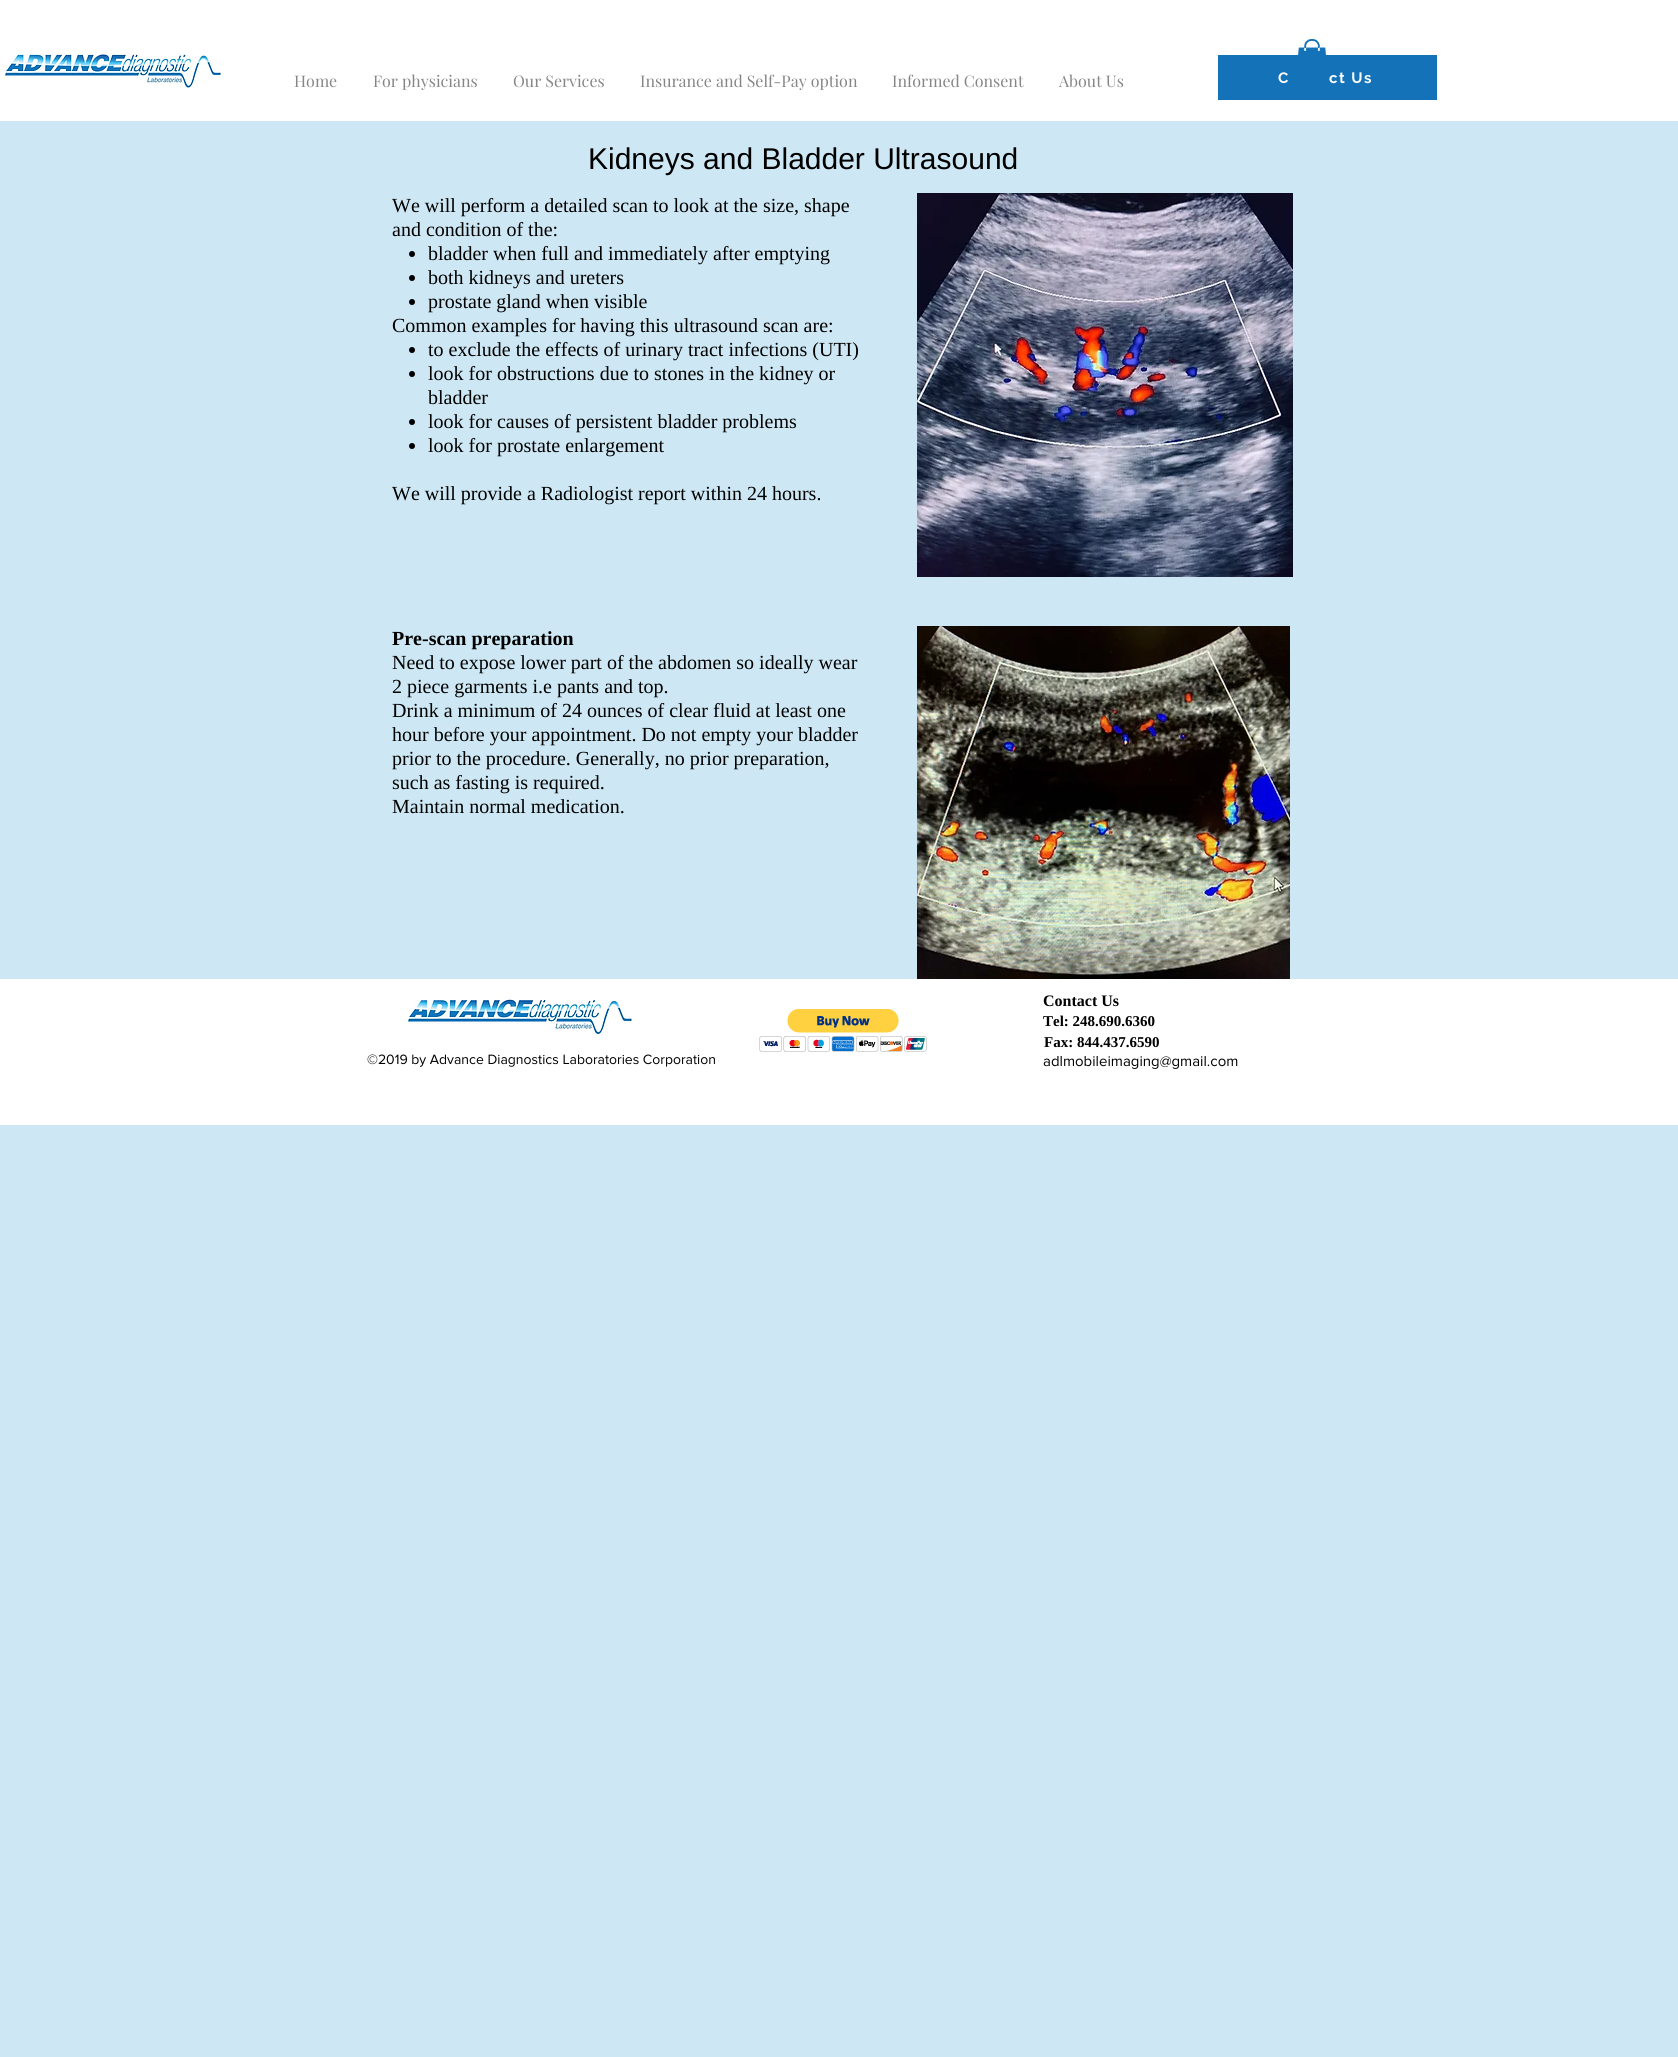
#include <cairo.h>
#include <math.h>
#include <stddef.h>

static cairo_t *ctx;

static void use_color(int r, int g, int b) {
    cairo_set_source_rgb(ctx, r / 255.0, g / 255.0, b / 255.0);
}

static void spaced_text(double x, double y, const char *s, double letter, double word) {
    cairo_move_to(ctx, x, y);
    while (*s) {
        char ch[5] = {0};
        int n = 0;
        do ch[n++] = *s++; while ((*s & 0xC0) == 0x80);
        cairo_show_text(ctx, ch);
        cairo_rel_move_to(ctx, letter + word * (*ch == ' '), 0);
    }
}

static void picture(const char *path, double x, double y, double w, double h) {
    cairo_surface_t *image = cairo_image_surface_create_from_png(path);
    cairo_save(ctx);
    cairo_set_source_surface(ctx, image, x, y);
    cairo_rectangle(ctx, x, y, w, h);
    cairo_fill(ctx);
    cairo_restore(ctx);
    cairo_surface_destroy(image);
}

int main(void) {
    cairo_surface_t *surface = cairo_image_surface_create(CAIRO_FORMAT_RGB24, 1678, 2057);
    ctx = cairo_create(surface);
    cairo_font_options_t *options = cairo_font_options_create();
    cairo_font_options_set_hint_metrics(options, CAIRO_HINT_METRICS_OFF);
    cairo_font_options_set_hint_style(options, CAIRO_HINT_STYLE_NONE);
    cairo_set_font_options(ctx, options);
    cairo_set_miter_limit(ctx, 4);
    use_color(205, 232, 244);
    cairo_paint(ctx);
    use_color(255, 255, 255);
    cairo_rectangle(ctx, 0, 0, 1678, 121);
    cairo_fill(ctx);
    use_color(20, 114, 185);
    cairo_rectangle(ctx, 1218, 55, 219, 45);
    cairo_fill(ctx);
    picture("img1.png", 1296, 39, 31, 41);
    picture("img2.png", 3, 53, 218, 35);
    cairo_select_font_face(ctx, "Playfair Display", CAIRO_FONT_SLANT_NORMAL, CAIRO_FONT_WEIGHT_NORMAL);
    cairo_set_font_size(ctx, 16);
    use_color(133, 133, 133);
    cairo_move_to(ctx, 294, 87);
    cairo_show_text(ctx, "Home");
    cairo_move_to(ctx, 373, 87);
    cairo_show_text(ctx, "For physicians");
    cairo_move_to(ctx, 513, 87);
    cairo_show_text(ctx, "Our Services");
    cairo_move_to(ctx, 640, 87);
    cairo_show_text(ctx, "Insurance and Self-Pay option");
    cairo_move_to(ctx, 892, 87);
    cairo_show_text(ctx, "Informed Consent");
    cairo_move_to(ctx, 1059, 87);
    cairo_show_text(ctx, "About Us");
    cairo_select_font_face(ctx, "Raleway", CAIRO_FONT_SLANT_NORMAL, CAIRO_FONT_WEIGHT_BOLD);
    cairo_set_font_size(ctx, 15);
    use_color(255, 255, 255);
    spaced_text(1278, 83, "C", 1.5, 0);
    spaced_text(1329, 83, "ct Us", 1.5, 0);
    cairo_select_font_face(ctx, "Liberation Sans", CAIRO_FONT_SLANT_NORMAL, CAIRO_FONT_WEIGHT_NORMAL);
    cairo_set_font_size(ctx, 30);
    use_color(0, 0, 0);
    cairo_move_to(ctx, 588, 169);
    cairo_show_text(ctx, "Kidneys and Bladder Ultrasound");
    cairo_select_font_face(ctx, "Liberation Serif", CAIRO_FONT_SLANT_NORMAL, CAIRO_FONT_WEIGHT_NORMAL);
    cairo_set_font_size(ctx, 20);
    cairo_move_to(ctx, 392, 212);
    cairo_show_text(ctx, "We will perform a detailed scan to look at the size, shape");
    cairo_move_to(ctx, 392, 236);
    cairo_show_text(ctx, "and condition of the:");
    cairo_new_path(ctx);
    cairo_arc(ctx, 412, 254, 3, 0, 2 * M_PI);
    cairo_fill(ctx);
    cairo_move_to(ctx, 428, 260);
    cairo_show_text(ctx, "bladder when full and immediately after emptying");
    cairo_new_path(ctx);
    cairo_arc(ctx, 412, 278, 3, 0, 2 * M_PI);
    cairo_fill(ctx);
    cairo_move_to(ctx, 428, 284);
    cairo_show_text(ctx, "both kidneys and ureters");
    cairo_new_path(ctx);
    cairo_arc(ctx, 412, 302, 3, 0, 2 * M_PI);
    cairo_fill(ctx);
    cairo_move_to(ctx, 428, 308);
    cairo_show_text(ctx, "prostate gland when visible");
    cairo_move_to(ctx, 392, 332);
    cairo_show_text(ctx, "Common examples for having this ultrasound scan are:");
    cairo_new_path(ctx);
    cairo_arc(ctx, 412, 350, 3, 0, 2 * M_PI);
    cairo_fill(ctx);
    cairo_move_to(ctx, 428, 356);
    cairo_show_text(ctx, "to exclude the effects of urinary tract infections (UTI)");
    cairo_new_path(ctx);
    cairo_arc(ctx, 412, 374, 3, 0, 2 * M_PI);
    cairo_fill(ctx);
    cairo_move_to(ctx, 428, 380);
    cairo_show_text(ctx, "look for obstructions due to stones in the kidney or");
    cairo_move_to(ctx, 428, 404);
    cairo_show_text(ctx, "bladder");
    cairo_new_path(ctx);
    cairo_arc(ctx, 412, 422, 3, 0, 2 * M_PI);
    cairo_fill(ctx);
    cairo_move_to(ctx, 428, 428);
    cairo_show_text(ctx, "look for causes of persistent bladder problems");
    cairo_new_path(ctx);
    cairo_arc(ctx, 412, 446, 3, 0, 2 * M_PI);
    cairo_fill(ctx);
    cairo_move_to(ctx, 428, 452);
    cairo_show_text(ctx, "look for prostate enlargement");
    cairo_move_to(ctx, 392, 500);
    cairo_show_text(ctx, "We will provide a Radiologist report within 24 hours.");
    picture("img3.png", 917, 193, 376, 384);
    cairo_select_font_face(ctx, "Liberation Serif", CAIRO_FONT_SLANT_NORMAL, CAIRO_FONT_WEIGHT_BOLD);
    cairo_move_to(ctx, 392, 645);
    cairo_show_text(ctx, "Pre-scan preparation");
    cairo_select_font_face(ctx, "Liberation Serif", CAIRO_FONT_SLANT_NORMAL, CAIRO_FONT_WEIGHT_NORMAL);
    cairo_move_to(ctx, 392, 669);
    cairo_show_text(ctx, "Need to expose lower part of the abdomen so ideally wear");
    cairo_move_to(ctx, 392, 693);
    cairo_show_text(ctx, "2 piece garments i.e pants and top.");
    cairo_move_to(ctx, 392, 717);
    cairo_show_text(ctx, "Drink a minimum of 24 ounces of clear fluid at least one");
    cairo_move_to(ctx, 392, 741);
    cairo_show_text(ctx, "hour before your appointment. Do not empty your bladder");
    cairo_move_to(ctx, 392, 765);
    cairo_show_text(ctx, "prior to the procedure. Generally, no prior preparation,");
    cairo_move_to(ctx, 392, 789);
    cairo_show_text(ctx, "such as fasting is required.");
    cairo_move_to(ctx, 392, 813);
    cairo_show_text(ctx, "Maintain normal medication.");
    picture("img4.png", 917, 626, 373, 353);
    use_color(255, 255, 255);
    cairo_rectangle(ctx, 0, 979, 1678, 146);
    cairo_fill(ctx);
    picture("img5.png", 406, 999, 226, 36);
    picture("img6.png", 759, 1009, 168, 43);
    cairo_select_font_face(ctx, "Liberation Serif", CAIRO_FONT_SLANT_NORMAL, CAIRO_FONT_WEIGHT_BOLD);
    cairo_set_font_size(ctx, 16);
    use_color(0, 0, 0);
    cairo_move_to(ctx, 1043, 1006);
    cairo_show_text(ctx, "Contact Us");
    cairo_set_font_size(ctx, 15);
    cairo_move_to(ctx, 1043, 1026);
    cairo_show_text(ctx, "Tel: 248.690.6360");
    cairo_move_to(ctx, 1044, 1047);
    cairo_show_text(ctx, "Fax: 844.437.6590");
    cairo_select_font_face(ctx, "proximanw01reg", CAIRO_FONT_SLANT_NORMAL, CAIRO_FONT_WEIGHT_NORMAL);
    cairo_move_to(ctx, 1043, 1066);
    cairo_show_text(ctx, "adlmobileimaging@gmail.com");
    cairo_set_font_size(ctx, 14);
    cairo_move_to(ctx, 367, 1064);
    cairo_show_text(ctx, "©2019 by Advance Diagnostics Laboratories Corporation");
    cairo_surface_write_to_png(surface, "result.png");
    cairo_font_options_destroy(options);
    cairo_destroy(ctx);
    cairo_surface_destroy(surface);
    return 0;
}
